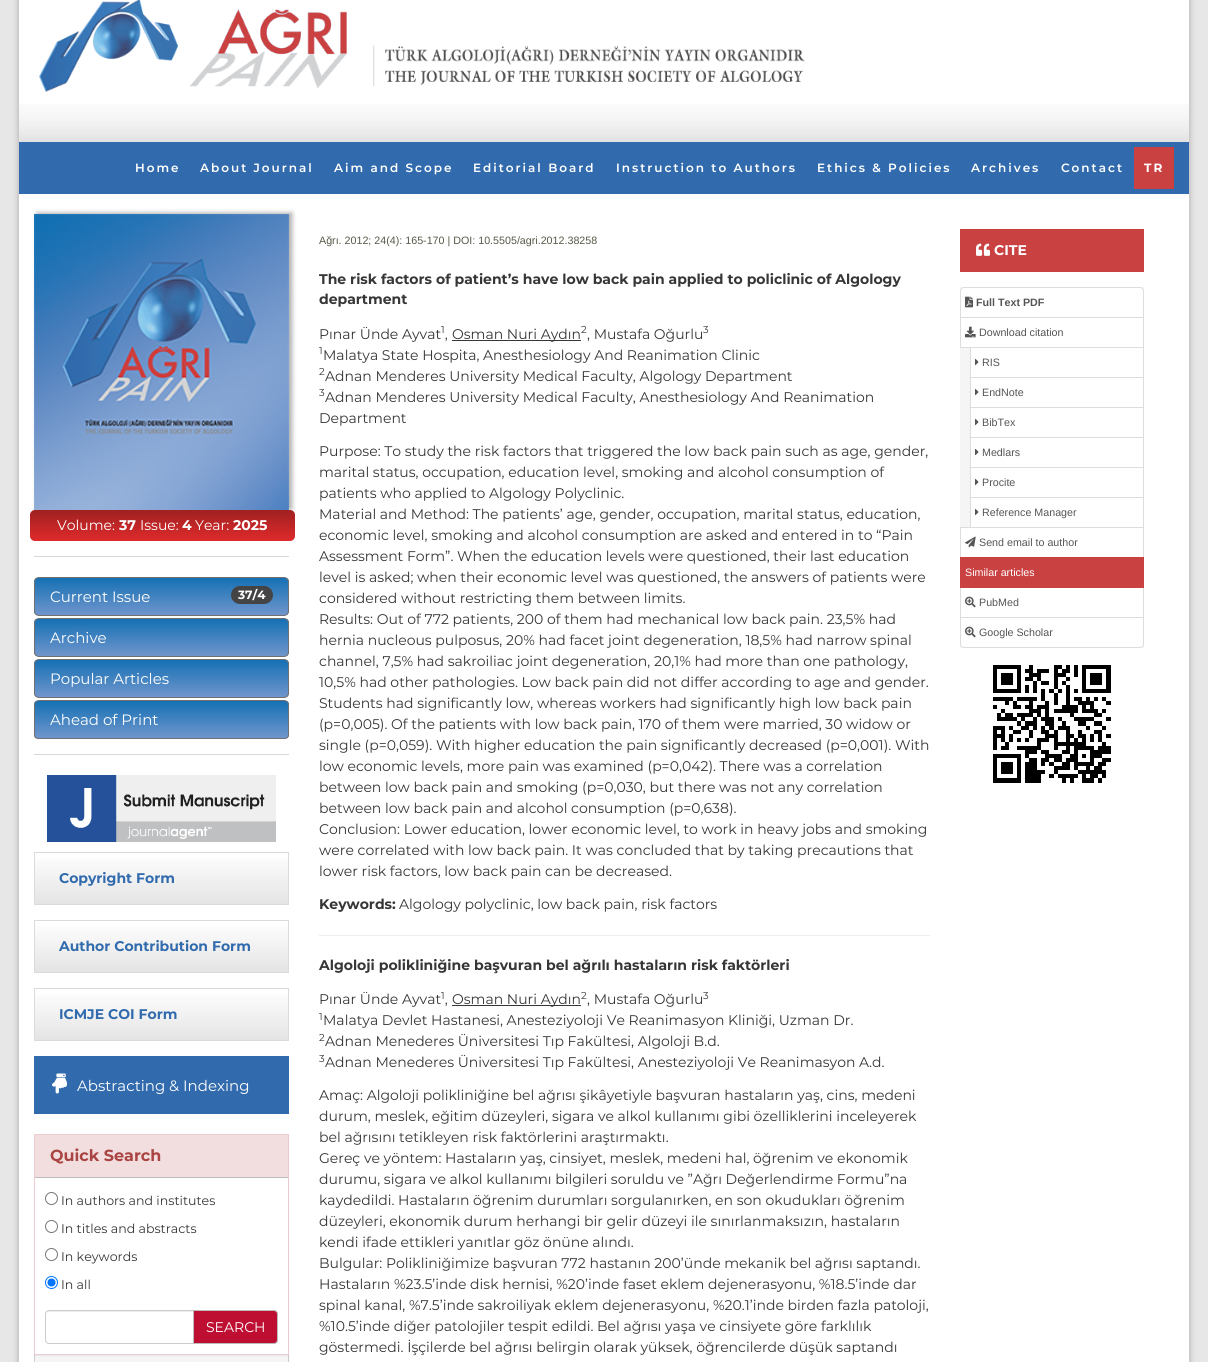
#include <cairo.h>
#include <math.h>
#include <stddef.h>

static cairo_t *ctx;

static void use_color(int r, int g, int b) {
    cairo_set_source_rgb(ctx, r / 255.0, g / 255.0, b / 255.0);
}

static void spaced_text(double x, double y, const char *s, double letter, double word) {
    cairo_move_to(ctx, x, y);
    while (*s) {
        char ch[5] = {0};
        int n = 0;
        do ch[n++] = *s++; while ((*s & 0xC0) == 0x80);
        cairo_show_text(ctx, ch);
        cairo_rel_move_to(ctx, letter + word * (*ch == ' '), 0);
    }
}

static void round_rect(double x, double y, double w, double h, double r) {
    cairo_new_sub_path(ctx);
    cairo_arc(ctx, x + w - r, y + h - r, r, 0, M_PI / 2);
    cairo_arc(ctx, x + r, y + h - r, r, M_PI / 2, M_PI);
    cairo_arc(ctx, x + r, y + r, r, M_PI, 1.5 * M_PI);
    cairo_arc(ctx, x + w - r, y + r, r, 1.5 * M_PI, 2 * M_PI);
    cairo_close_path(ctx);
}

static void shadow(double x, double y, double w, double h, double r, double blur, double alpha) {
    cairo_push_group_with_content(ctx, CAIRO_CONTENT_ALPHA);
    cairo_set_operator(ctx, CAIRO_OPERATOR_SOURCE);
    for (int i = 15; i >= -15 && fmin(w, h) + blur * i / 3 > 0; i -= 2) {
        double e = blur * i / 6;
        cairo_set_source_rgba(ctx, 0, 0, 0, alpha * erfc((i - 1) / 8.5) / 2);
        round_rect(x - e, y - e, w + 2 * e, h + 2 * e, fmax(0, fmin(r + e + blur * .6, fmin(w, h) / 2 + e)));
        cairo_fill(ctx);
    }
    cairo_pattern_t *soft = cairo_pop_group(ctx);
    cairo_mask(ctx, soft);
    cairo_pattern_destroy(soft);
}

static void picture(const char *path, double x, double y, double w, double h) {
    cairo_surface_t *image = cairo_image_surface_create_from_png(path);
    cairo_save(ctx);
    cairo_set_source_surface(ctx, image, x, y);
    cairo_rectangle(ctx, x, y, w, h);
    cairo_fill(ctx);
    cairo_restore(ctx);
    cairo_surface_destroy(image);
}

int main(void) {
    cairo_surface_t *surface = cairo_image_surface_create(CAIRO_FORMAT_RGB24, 1208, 1362);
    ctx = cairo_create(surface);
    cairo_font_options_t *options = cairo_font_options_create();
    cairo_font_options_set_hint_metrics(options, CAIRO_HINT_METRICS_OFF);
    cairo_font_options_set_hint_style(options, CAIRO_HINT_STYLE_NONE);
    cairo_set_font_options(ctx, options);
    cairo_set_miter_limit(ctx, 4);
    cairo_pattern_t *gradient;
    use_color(231, 231, 231);
    cairo_paint(ctx);
    use_color(0, 0, 0);
    shadow(23, -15, 1162, 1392, 0, 5, 0.71);
    use_color(255, 255, 255);
    cairo_rectangle(ctx, 19, 0, 1170, 1362);
    cairo_fill(ctx);
    picture("img1.png", 19, 104, 1170, 38);
    picture("img2.png", 39, 0, 766, 92);
    use_color(49, 107, 173);
    cairo_rectangle(ctx, 19, 142, 1170, 52);
    cairo_fill(ctx);
    cairo_select_font_face(ctx, "Montserrat SemiBold", CAIRO_FONT_SLANT_NORMAL, CAIRO_FONT_WEIGHT_NORMAL);
    cairo_set_font_size(ctx, 12);
    use_color(255, 255, 255);
    spaced_text(135, 172, "Home", 2, 0);
    spaced_text(200, 172, "About Journal", 2, 0);
    spaced_text(334, 172, "Aim and Scope", 2, 0);
    spaced_text(473, 172, "Editorial Board", 2, 0);
    spaced_text(616, 172, "Instruction to Authors", 2, 0);
    spaced_text(817, 172, "Ethics & Policies", 2, 0);
    spaced_text(971, 172, "Archives", 2, 0);
    spaced_text(1061, 172, "Contact", 2, 0);
    use_color(202, 65, 66);
    cairo_rectangle(ctx, 1134, 147, 40, 42);
    cairo_fill(ctx);
    cairo_select_font_face(ctx, "Montserrat", CAIRO_FONT_SLANT_NORMAL, CAIRO_FONT_WEIGHT_BOLD);
    use_color(255, 255, 255);
    spaced_text(1144, 172, "TR", 2, 0);
    use_color(0, 0, 0);
    shadow(37, 213, 255, 296, 0, 2.5, 0.33);
    picture("img3.png", 34, 214, 255, 296);
    use_color(216, 216, 216);
    cairo_rectangle(ctx, 34, 556, 255, 1);
    cairo_fill(ctx);
    gradient = cairo_pattern_create_linear(163, 510, 163, 541);
    cairo_pattern_add_color_stop_rgba(gradient, 0, 0.627, 0.129, 0.129, 1);
    cairo_pattern_add_color_stop_rgba(gradient, 1, 0.875, 0.165, 0.169, 1);
    cairo_set_source(ctx, gradient);
    cairo_pattern_destroy(gradient);
    round_rect(30, 510, 265, 31, 5);
    cairo_fill(ctx);
    cairo_select_font_face(ctx, "Montserrat", CAIRO_FONT_SLANT_NORMAL, CAIRO_FONT_WEIGHT_NORMAL);
    cairo_set_font_size(ctx, 14);
    use_color(255, 255, 255);
    cairo_move_to(ctx, 57, 530);
    cairo_show_text(ctx, "Volume:");
    cairo_select_font_face(ctx, "Montserrat", CAIRO_FONT_SLANT_NORMAL, CAIRO_FONT_WEIGHT_BOLD);
    cairo_move_to(ctx, 119, 530);
    cairo_show_text(ctx, "37");
    cairo_select_font_face(ctx, "Montserrat", CAIRO_FONT_SLANT_NORMAL, CAIRO_FONT_WEIGHT_NORMAL);
    cairo_move_to(ctx, 140, 530);
    cairo_show_text(ctx, "Issue:");
    cairo_select_font_face(ctx, "Montserrat", CAIRO_FONT_SLANT_NORMAL, CAIRO_FONT_WEIGHT_BOLD);
    cairo_move_to(ctx, 182, 530);
    cairo_show_text(ctx, "4");
    cairo_select_font_face(ctx, "Montserrat", CAIRO_FONT_SLANT_NORMAL, CAIRO_FONT_WEIGHT_NORMAL);
    cairo_move_to(ctx, 195, 530);
    cairo_show_text(ctx, "Year:");
    cairo_select_font_face(ctx, "Montserrat", CAIRO_FONT_SLANT_NORMAL, CAIRO_FONT_WEIGHT_BOLD);
    cairo_move_to(ctx, 233, 530);
    cairo_show_text(ctx, "2025");
    use_color(216, 216, 216);
    cairo_rectangle(ctx, 34, 754, 255, 1);
    cairo_fill(ctx);
    cairo_save(ctx);
    round_rect(34, 577, 255, 39, 5);
    cairo_clip(ctx);
    gradient = cairo_pattern_create_linear(162, 578, 162, 615);
    cairo_pattern_add_color_stop_rgba(gradient, 0, 0.082, 0.443, 0.706, 1);
    cairo_pattern_add_color_stop_rgba(gradient, 1, 0.439, 0.588, 0.8, 1);
    cairo_set_source(ctx, gradient);
    cairo_pattern_destroy(gradient);
    cairo_rectangle(ctx, 34, 578, 255, 37);
    cairo_fill(ctx);
    cairo_restore(ctx);
    round_rect(34.5, 577.5, 254, 38, 4.5);
    use_color(112, 112, 112);
    cairo_set_line_width(ctx, 1);
    cairo_stroke(ctx);
    cairo_select_font_face(ctx, "Montserrat", CAIRO_FONT_SLANT_NORMAL, CAIRO_FONT_WEIGHT_NORMAL);
    cairo_set_font_size(ctx, 15);
    use_color(255, 255, 255);
    cairo_move_to(ctx, 50, 602);
    cairo_show_text(ctx, "Current Issue");
    use_color(68, 68, 68);
    round_rect(231, 586, 42, 18, 9);
    cairo_fill(ctx);
    cairo_select_font_face(ctx, "Montserrat", CAIRO_FONT_SLANT_NORMAL, CAIRO_FONT_WEIGHT_BOLD);
    cairo_set_font_size(ctx, 12);
    use_color(255, 255, 255);
    cairo_move_to(ctx, 238, 599);
    cairo_show_text(ctx, "37/4");
    cairo_save(ctx);
    round_rect(34, 618, 255, 39, 5);
    cairo_clip(ctx);
    gradient = cairo_pattern_create_linear(162, 619, 162, 656);
    cairo_pattern_add_color_stop_rgba(gradient, 0, 0.082, 0.443, 0.706, 1);
    cairo_pattern_add_color_stop_rgba(gradient, 1, 0.439, 0.588, 0.8, 1);
    cairo_set_source(ctx, gradient);
    cairo_pattern_destroy(gradient);
    cairo_rectangle(ctx, 34, 619, 255, 37);
    cairo_fill(ctx);
    cairo_restore(ctx);
    round_rect(34.5, 618.5, 254, 38, 4.5);
    use_color(112, 112, 112);
    cairo_stroke(ctx);
    cairo_select_font_face(ctx, "Montserrat", CAIRO_FONT_SLANT_NORMAL, CAIRO_FONT_WEIGHT_NORMAL);
    cairo_set_font_size(ctx, 15);
    use_color(255, 255, 255);
    cairo_move_to(ctx, 50, 643);
    cairo_show_text(ctx, "Archive");
    cairo_save(ctx);
    round_rect(34, 659, 255, 39, 5);
    cairo_clip(ctx);
    gradient = cairo_pattern_create_linear(162, 660, 162, 697);
    cairo_pattern_add_color_stop_rgba(gradient, 0, 0.082, 0.443, 0.706, 1);
    cairo_pattern_add_color_stop_rgba(gradient, 1, 0.439, 0.588, 0.8, 1);
    cairo_set_source(ctx, gradient);
    cairo_pattern_destroy(gradient);
    cairo_rectangle(ctx, 34, 660, 255, 37);
    cairo_fill(ctx);
    cairo_restore(ctx);
    round_rect(34.5, 659.5, 254, 38, 4.5);
    use_color(112, 112, 112);
    cairo_stroke(ctx);
    use_color(255, 255, 255);
    cairo_move_to(ctx, 50, 684);
    cairo_show_text(ctx, "Popular Articles");
    cairo_save(ctx);
    cairo_new_path(ctx);
    cairo_move_to(ctx, 39, 700);
    cairo_line_to(ctx, 284, 700);
    cairo_curve_to(ctx, 287, 700, 289, 702, 289, 705);
    cairo_line_to(ctx, 289, 735);
    cairo_curve_to(ctx, 289, 737, 287, 739, 285, 739);
    cairo_line_to(ctx, 38, 739);
    cairo_curve_to(ctx, 36, 739, 34, 737, 34, 735);
    cairo_line_to(ctx, 34, 705);
    cairo_curve_to(ctx, 34, 702, 36, 700, 39, 700);
    cairo_close_path(ctx);
    cairo_clip(ctx);
    gradient = cairo_pattern_create_linear(162, 701, 162, 738);
    cairo_pattern_add_color_stop_rgba(gradient, 0, 0.082, 0.443, 0.706, 1);
    cairo_pattern_add_color_stop_rgba(gradient, 1, 0.439, 0.588, 0.8, 1);
    cairo_set_source(ctx, gradient);
    cairo_pattern_destroy(gradient);
    cairo_rectangle(ctx, 34, 701, 255, 37);
    cairo_fill(ctx);
    cairo_restore(ctx);
    cairo_new_path(ctx);
    cairo_move_to(ctx, 39, 700.5);
    cairo_line_to(ctx, 284, 700.5);
    cairo_curve_to(ctx, 286.5, 700.5, 288.5, 702.5, 288.5, 705);
    cairo_line_to(ctx, 288.5, 735);
    cairo_curve_to(ctx, 288.5, 737, 287, 738.5, 285, 738.5);
    cairo_line_to(ctx, 38, 738.5);
    cairo_curve_to(ctx, 36, 738.5, 34.5, 737, 34.5, 735);
    cairo_line_to(ctx, 34.5, 705);
    cairo_curve_to(ctx, 34.5, 702.5, 36.5, 700.5, 39, 700.5);
    cairo_close_path(ctx);
    use_color(112, 112, 112);
    cairo_stroke(ctx);
    use_color(255, 255, 255);
    cairo_move_to(ctx, 50, 725);
    cairo_show_text(ctx, "Ahead of Print");
    picture("img4.png", 47, 775, 229, 67);
    gradient = cairo_pattern_create_linear(162, 904, 162, 853);
    cairo_pattern_add_color_stop_rgba(gradient, 0, 0.894, 0.894, 0.894, 1);
    cairo_pattern_add_color_stop_rgba(gradient, 1, 1, 1, 1, 1);
    cairo_set_source(ctx, gradient);
    cairo_pattern_destroy(gradient);
    cairo_rectangle(ctx, 35, 858, 253, 46);
    cairo_fill(ctx);
    cairo_rectangle(ctx, 34.5, 852.5, 254, 52);
    use_color(219, 219, 219);
    cairo_stroke(ctx);
    cairo_select_font_face(ctx, "Montserrat", CAIRO_FONT_SLANT_NORMAL, CAIRO_FONT_WEIGHT_BOLD);
    cairo_set_font_size(ctx, 14);
    use_color(49, 107, 173);
    cairo_move_to(ctx, 59, 883);
    cairo_show_text(ctx, "Copyright Form");
    gradient = cairo_pattern_create_linear(162, 972, 162, 921);
    cairo_pattern_add_color_stop_rgba(gradient, 0, 0.894, 0.894, 0.894, 1);
    cairo_pattern_add_color_stop_rgba(gradient, 1, 1, 1, 1, 1);
    cairo_set_source(ctx, gradient);
    cairo_pattern_destroy(gradient);
    cairo_rectangle(ctx, 35, 926, 253, 46);
    cairo_fill(ctx);
    cairo_rectangle(ctx, 34.5, 920.5, 254, 52);
    use_color(219, 219, 219);
    cairo_stroke(ctx);
    use_color(49, 107, 173);
    cairo_move_to(ctx, 59, 951);
    cairo_show_text(ctx, "Author Contribution Form");
    gradient = cairo_pattern_create_linear(162, 1040, 162, 989);
    cairo_pattern_add_color_stop_rgba(gradient, 0, 0.894, 0.894, 0.894, 1);
    cairo_pattern_add_color_stop_rgba(gradient, 1, 1, 1, 1, 1);
    cairo_set_source(ctx, gradient);
    cairo_pattern_destroy(gradient);
    cairo_rectangle(ctx, 35, 994, 253, 46);
    cairo_fill(ctx);
    cairo_rectangle(ctx, 34.5, 988.5, 254, 52);
    use_color(219, 219, 219);
    cairo_stroke(ctx);
    use_color(49, 107, 173);
    cairo_move_to(ctx, 59, 1019);
    cairo_show_text(ctx, "ICMJE COI Form");
    cairo_rectangle(ctx, 34, 1056, 255, 58);
    cairo_fill(ctx);
    picture("img5.png", 52, 1073, 15, 21);
    cairo_select_font_face(ctx, "Montserrat", CAIRO_FONT_SLANT_NORMAL, CAIRO_FONT_WEIGHT_NORMAL);
    cairo_set_font_size(ctx, 15);
    use_color(255, 255, 255);
    cairo_move_to(ctx, 77, 1091);
    cairo_show_text(ctx, "Abstracting & Indexing");
    use_color(245, 245, 245);
    cairo_rectangle(ctx, 35, 1355, 253, 7);
    cairo_fill(ctx);
    cairo_rectangle(ctx, 34.5, 1134.5, 254, 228);
    use_color(204, 204, 204);
    cairo_stroke(ctx);
    use_color(0, 0, 0);
    shadow(34, 1135, 255, 221, 0, 0.5, 0.05);
    use_color(255, 255, 255);
    cairo_rectangle(ctx, 35, 1178, 253, 176);
    cairo_fill(ctx);
    cairo_rectangle(ctx, 34.5, 1134.5, 254, 220);
    use_color(235, 204, 209);
    cairo_stroke(ctx);
    use_color(242, 222, 222);
    cairo_rectangle(ctx, 35, 1135, 253, 42);
    cairo_fill(ctx);
    use_color(187, 187, 187);
    cairo_rectangle(ctx, 35, 1177, 253, 1);
    cairo_fill(ctx);
    cairo_select_font_face(ctx, "Montserrat", CAIRO_FONT_SLANT_NORMAL, CAIRO_FONT_WEIGHT_BOLD);
    cairo_set_font_size(ctx, 16);
    use_color(169, 68, 66);
    cairo_move_to(ctx, 50, 1161);
    cairo_show_text(ctx, "Quick Search");
    cairo_new_path(ctx);
    cairo_arc(ctx, 51.5, 1198.5, 6, 0, 2 * M_PI);
    use_color(118, 118, 118);
    cairo_stroke(ctx);
    cairo_select_font_face(ctx, "Montserrat", CAIRO_FONT_SLANT_NORMAL, CAIRO_FONT_WEIGHT_NORMAL);
    cairo_set_font_size(ctx, 12.6);
    use_color(54, 54, 54);
    cairo_move_to(ctx, 61, 1205);
    cairo_show_text(ctx, "In authors and institutes");
    cairo_new_path(ctx);
    cairo_arc(ctx, 51.5, 1226.5, 6, 0, 2 * M_PI);
    use_color(118, 118, 118);
    cairo_stroke(ctx);
    use_color(54, 54, 54);
    cairo_move_to(ctx, 61, 1233);
    cairo_show_text(ctx, "In titles and abstracts");
    cairo_new_path(ctx);
    cairo_arc(ctx, 51.5, 1254.5, 6, 0, 2 * M_PI);
    use_color(118, 118, 118);
    cairo_stroke(ctx);
    use_color(54, 54, 54);
    cairo_move_to(ctx, 61, 1261);
    cairo_show_text(ctx, "In keywords");
    cairo_new_path(ctx);
    cairo_arc(ctx, 51.5, 1282.5, 6, 0, 2 * M_PI);
    use_color(0, 117, 255);
    cairo_stroke(ctx);
    cairo_arc(ctx, 51.5, 1282.5, 4, 0, 2 * M_PI);
    cairo_fill(ctx);
    use_color(54, 54, 54);
    cairo_move_to(ctx, 61, 1289);
    cairo_show_text(ctx, "In all");
    use_color(236, 236, 236);
    cairo_new_path(ctx);
    cairo_move_to(ctx, 49, 1312);
    cairo_line_to(ctx, 193, 1312);
    cairo_line_to(ctx, 193, 1311);
    cairo_line_to(ctx, 49, 1311);
    cairo_curve_to(ctx, 47, 1311, 46, 1313, 46, 1315);
    cairo_curve_to(ctx, 46, 1313, 47, 1312, 49, 1312);
    cairo_close_path(ctx);
    cairo_fill(ctx);
    cairo_new_path(ctx);
    cairo_move_to(ctx, 49, 1310.5);
    cairo_line_to(ctx, 193.5, 1310.5);
    cairo_line_to(ctx, 193.5, 1343.5);
    cairo_line_to(ctx, 49, 1343.5);
    cairo_curve_to(ctx, 47, 1343.5, 45.5, 1342, 45.5, 1340);
    cairo_line_to(ctx, 45.5, 1314);
    cairo_curve_to(ctx, 45.5, 1312, 47, 1310.5, 49, 1310.5);
    cairo_close_path(ctx);
    use_color(204, 204, 204);
    cairo_stroke(ctx);
    use_color(190, 15, 51);
    cairo_new_path(ctx);
    cairo_move_to(ctx, 193.5, 1310.5);
    cairo_line_to(ctx, 274, 1310.5);
    cairo_curve_to(ctx, 276, 1310.5, 277.5, 1312, 277.5, 1314);
    cairo_line_to(ctx, 277.5, 1340);
    cairo_curve_to(ctx, 277.5, 1342, 276, 1343.5, 274, 1343.5);
    cairo_line_to(ctx, 193.5, 1343.5);
    cairo_close_path(ctx);
    cairo_fill_preserve(ctx);
    use_color(187, 187, 187);
    cairo_stroke(ctx);
    cairo_set_font_size(ctx, 14);
    use_color(255, 255, 255);
    cairo_move_to(ctx, 206, 1332);
    cairo_show_text(ctx, "SEARCH");
    cairo_select_font_face(ctx, "Liberation Sans", CAIRO_FONT_SLANT_NORMAL, CAIRO_FONT_WEIGHT_NORMAL);
    cairo_set_font_size(ctx, 10.7);
    use_color(87, 87, 71);
    cairo_move_to(ctx, 319, 244);
    cairo_show_text(ctx, "Ağrı. 2012; 24(4): 165-170 | DOI: 10.5505/agri.2012.38258");
    cairo_select_font_face(ctx, "Montserrat", CAIRO_FONT_SLANT_NORMAL, CAIRO_FONT_WEIGHT_BOLD);
    cairo_set_font_size(ctx, 14);
    use_color(54, 54, 54);
    cairo_move_to(ctx, 319, 284);
    cairo_show_text(ctx, "The risk factors of patient’s have low back pain applied to policlinic of Algology");
    cairo_move_to(ctx, 319, 304);
    cairo_show_text(ctx, "department");
    cairo_select_font_face(ctx, "Montserrat", CAIRO_FONT_SLANT_NORMAL, CAIRO_FONT_WEIGHT_NORMAL);
    cairo_move_to(ctx, 319, 339);
    cairo_show_text(ctx, "Pınar Ünde Ayvat ,");
    cairo_set_font_size(ctx, 10);
    cairo_move_to(ctx, 441, 333);
    cairo_show_text(ctx, "1");
    cairo_move_to(ctx, 581, 333);
    cairo_show_text(ctx, "2");
    cairo_move_to(ctx, 703, 333);
    cairo_show_text(ctx, "3");
    cairo_rectangle(ctx, 452, 340, 129, 1);
    cairo_fill(ctx);
    cairo_set_font_size(ctx, 14);
    cairo_move_to(ctx, 452, 339);
    cairo_show_text(ctx, "Osman Nuri Aydın");
    cairo_move_to(ctx, 587, 339);
    cairo_show_text(ctx, ", Mustafa Oğurlu");
    cairo_set_font_size(ctx, 10);
    cairo_move_to(ctx, 319, 354);
    cairo_show_text(ctx, "1");
    cairo_set_font_size(ctx, 14);
    cairo_move_to(ctx, 323, 360);
    cairo_show_text(ctx, "Malatya State Hospita, Anesthesiology And Reanimation Clinic");
    cairo_set_font_size(ctx, 10);
    cairo_move_to(ctx, 319, 375);
    cairo_show_text(ctx, "2");
    cairo_set_font_size(ctx, 14);
    cairo_move_to(ctx, 325, 381);
    cairo_show_text(ctx, "Adnan Menderes University Medical Faculty, Algology Department");
    cairo_set_font_size(ctx, 10);
    cairo_move_to(ctx, 319, 396);
    cairo_show_text(ctx, "3");
    cairo_set_font_size(ctx, 14);
    cairo_move_to(ctx, 325, 402);
    cairo_show_text(ctx, "Adnan Menderes University Medical Faculty, Anesthesiology And Reanimation");
    cairo_move_to(ctx, 319, 423);
    cairo_show_text(ctx, "Department");
    cairo_move_to(ctx, 319, 456);
    cairo_show_text(ctx, "Purpose: To study the risk factors that triggered the low back pain such as age, gender,");
    cairo_move_to(ctx, 319, 477);
    cairo_show_text(ctx, "marital status, occupation, education level, smoking and alcohol consumption of");
    cairo_move_to(ctx, 319, 498);
    cairo_show_text(ctx, "patients who applied to Algology Polyclinic.");
    cairo_move_to(ctx, 319, 519);
    cairo_show_text(ctx, "Material and Method: The patients’ age, gender, occupation, marital status, education,");
    cairo_move_to(ctx, 319, 540);
    cairo_show_text(ctx, "economic level, smoking and alcohol consumption are asked and entered in to “Pain");
    cairo_move_to(ctx, 319, 561);
    cairo_show_text(ctx, "Assessment Form”. When the education levels were questioned, their last education");
    cairo_move_to(ctx, 319, 582);
    cairo_show_text(ctx, "level is asked; when their economic level was questioned, the answers of patients were");
    cairo_move_to(ctx, 319, 603);
    cairo_show_text(ctx, "considered without restricting them between limits.");
    cairo_move_to(ctx, 319, 624);
    cairo_show_text(ctx, "Results: Out of 772 patients, 200 of them had mechanical low back pain. 23,5% had");
    cairo_move_to(ctx, 319, 645);
    cairo_show_text(ctx, "hernia nucleous pulposus, 20% had facet joint degeneration, 18,5% had narrow spinal");
    cairo_move_to(ctx, 319, 666);
    cairo_show_text(ctx, "channel, 7,5% had sakroiliac joint degeneration, 20,1% had more than one pathology,");
    cairo_move_to(ctx, 319, 687);
    cairo_show_text(ctx, "10,5% had other pathologies. Low back pain did not differ according to age and gender.");
    cairo_move_to(ctx, 319, 708);
    cairo_show_text(ctx, "Students had significantly low, whereas workers had significantly high low back pain");
    cairo_move_to(ctx, 319, 729);
    cairo_show_text(ctx, "(p=0,005). Of the patients with low back pain, 170 of them were married, 30 widow or");
    cairo_move_to(ctx, 319, 750);
    cairo_show_text(ctx, "single (p=0,059). With higher education the pain significantly decreased (p=0,001). With");
    cairo_move_to(ctx, 319, 771);
    cairo_show_text(ctx, "low economic levels, more pain was examined (p=0,042). There was a correlation");
    cairo_move_to(ctx, 319, 792);
    cairo_show_text(ctx, "between low back pain and smoking (p=0,030, but there was not any correlation");
    cairo_move_to(ctx, 319, 813);
    cairo_show_text(ctx, "between low back pain and alcohol consumption (p=0,638).");
    cairo_move_to(ctx, 319, 834);
    cairo_show_text(ctx, "Conclusion: Lower education, lower economic level, to work in heavy jobs and smoking");
    cairo_move_to(ctx, 319, 855);
    cairo_show_text(ctx, "were correlated with low back pain. It was concluded that by taking precautions that");
    cairo_move_to(ctx, 319, 876);
    cairo_show_text(ctx, "lower risk factors, low back pain can be decreased.");
    cairo_select_font_face(ctx, "Montserrat", CAIRO_FONT_SLANT_NORMAL, CAIRO_FONT_WEIGHT_BOLD);
    cairo_move_to(ctx, 319, 909);
    cairo_show_text(ctx, "Keywords:");
    cairo_select_font_face(ctx, "Montserrat", CAIRO_FONT_SLANT_NORMAL, CAIRO_FONT_WEIGHT_NORMAL);
    cairo_move_to(ctx, 399, 909);
    cairo_show_text(ctx, "Algology polyclinic, low back pain, risk factors");
    use_color(238, 238, 238);
    cairo_rectangle(ctx, 319, 935, 611, 1);
    cairo_fill(ctx);
    cairo_select_font_face(ctx, "Montserrat", CAIRO_FONT_SLANT_NORMAL, CAIRO_FONT_WEIGHT_BOLD);
    use_color(54, 54, 54);
    cairo_move_to(ctx, 319, 970);
    cairo_show_text(ctx, "Algoloji polikliniğine başvuran bel ağrılı hastaların risk faktörleri");
    cairo_select_font_face(ctx, "Montserrat", CAIRO_FONT_SLANT_NORMAL, CAIRO_FONT_WEIGHT_NORMAL);
    cairo_move_to(ctx, 319, 1004);
    cairo_show_text(ctx, "Pınar Ünde Ayvat ,");
    cairo_set_font_size(ctx, 10);
    cairo_move_to(ctx, 441, 999);
    cairo_show_text(ctx, "1");
    cairo_rectangle(ctx, 452, 1005, 129, 1);
    cairo_fill(ctx);
    cairo_set_font_size(ctx, 14);
    cairo_move_to(ctx, 452, 1004);
    cairo_show_text(ctx, "Osman Nuri Aydın");
    cairo_set_font_size(ctx, 10);
    cairo_move_to(ctx, 581, 999);
    cairo_show_text(ctx, "2");
    cairo_set_font_size(ctx, 14);
    cairo_move_to(ctx, 587, 1004);
    cairo_show_text(ctx, ", Mustafa Oğurlu");
    cairo_set_font_size(ctx, 10);
    cairo_move_to(ctx, 703, 999);
    cairo_show_text(ctx, "3");
    cairo_move_to(ctx, 319, 1020);
    cairo_show_text(ctx, "1");
    cairo_set_font_size(ctx, 14);
    cairo_move_to(ctx, 323, 1025);
    cairo_show_text(ctx, "Malatya Devlet Hastanesi, Anesteziyoloji Ve Reanimasyon Kliniği, Uzman Dr.");
    cairo_set_font_size(ctx, 10);
    cairo_move_to(ctx, 319, 1041);
    cairo_show_text(ctx, "2");
    cairo_set_font_size(ctx, 14);
    cairo_move_to(ctx, 325, 1046);
    cairo_show_text(ctx, "Adnan Menederes Üniversitesi Tıp Fakültesi, Algoloji B.d.");
    cairo_set_font_size(ctx, 10);
    cairo_move_to(ctx, 319, 1062);
    cairo_show_text(ctx, "3");
    cairo_set_font_size(ctx, 14);
    cairo_move_to(ctx, 325, 1067);
    cairo_show_text(ctx, "Adnan Menederes Üniversitesi Tıp Fakültesi, Anesteziyoloji Ve Reanimasyon A.d.");
    cairo_move_to(ctx, 319, 1100);
    cairo_show_text(ctx, "Amaç: Algoloji polikliniğine bel ağrısı şikâyetiyle başvuran hastaların yaş, cins, medeni");
    cairo_move_to(ctx, 319, 1121);
    cairo_show_text(ctx, "durum, meslek, eğitim düzeyleri, sigara ve alkol kullanımı gibi özelliklerini inceleyerek");
    cairo_move_to(ctx, 319, 1142);
    cairo_show_text(ctx, "bel ağrısını tetikleyen risk faktörlerini araştırmaktı.");
    cairo_move_to(ctx, 319, 1163);
    cairo_show_text(ctx, "Gereç ve yöntem: Hastaların yaş, cinsiyet, meslek, medeni hal, öğrenim ve ekonomik");
    cairo_move_to(ctx, 319, 1184);
    cairo_show_text(ctx, "durumu, sigara ve alkol kullanımı bilgileri soruldu ve ”Ağrı Değerlendirme Formu”na");
    cairo_move_to(ctx, 319, 1205);
    cairo_show_text(ctx, "kaydedildi. Hastaların öğrenim durumları sorgulanırken, en son okudukları öğrenim");
    cairo_move_to(ctx, 319, 1226);
    cairo_show_text(ctx, "düzeyleri, ekonomik durum herhangi bir gelir düzeyi ile sınırlanmaksızın, hastaların");
    cairo_move_to(ctx, 319, 1247);
    cairo_show_text(ctx, "kendi ifade ettikleri yanıtlar göz önüne alındı.");
    cairo_move_to(ctx, 319, 1268);
    cairo_show_text(ctx, "Bulgular: Polikliniğimize başvuran 772 hastanın 200’ünde mekanik bel ağrısı saptandı.");
    cairo_move_to(ctx, 319, 1289);
    cairo_show_text(ctx, "Hastaların %23.5’inde disk hernisi, %20’inde faset eklem dejenerasyonu, %18.5’inde dar");
    cairo_move_to(ctx, 319, 1310);
    cairo_show_text(ctx, "spinal kanal, %7.5’inde sakroiliyak eklem dejenerasyonu, %20.1’inde birden fazla patoloji,");
    cairo_move_to(ctx, 319, 1331);
    cairo_show_text(ctx, "%10.5’inde diğer patolojiler tespit edildi. Bel ağrısı yaşa ve cinsiyete göre farklılık");
    cairo_move_to(ctx, 319, 1352);
    cairo_show_text(ctx, "göstermedi. İşçilerde bel ağrısı belirgin olarak yüksek, öğrencilerde düşük saptandı");
    use_color(202, 65, 66);
    cairo_rectangle(ctx, 960, 229, 184, 43);
    cairo_fill(ctx);
    picture("img6.png", 976, 243, 14, 13);
    cairo_select_font_face(ctx, "Montserrat", CAIRO_FONT_SLANT_NORMAL, CAIRO_FONT_WEIGHT_BOLD);
    use_color(255, 255, 255);
    cairo_move_to(ctx, 994, 255);
    cairo_show_text(ctx, "CITE");
    use_color(245, 245, 245);
    cairo_rectangle(ctx, 960, 287, 184, 361);
    cairo_fill(ctx);
    use_color(255, 255, 255);
    cairo_new_path(ctx);
    cairo_move_to(ctx, 964, 287.5);
    cairo_line_to(ctx, 1140, 287.5);
    cairo_curve_to(ctx, 1142, 287.5, 1143.5, 289, 1143.5, 291);
    cairo_line_to(ctx, 1143.5, 317.5);
    cairo_line_to(ctx, 960.5, 317.5);
    cairo_line_to(ctx, 960.5, 291);
    cairo_curve_to(ctx, 960.5, 289, 962, 287.5, 964, 287.5);
    cairo_close_path(ctx);
    cairo_fill_preserve(ctx);
    use_color(221, 221, 221);
    cairo_stroke(ctx);
    picture("img7.png", 965, 296, 8, 12);
    cairo_select_font_face(ctx, "Liberation Sans", CAIRO_FONT_SLANT_NORMAL, CAIRO_FONT_WEIGHT_BOLD);
    cairo_set_font_size(ctx, 10.7);
    use_color(85, 85, 85);
    cairo_move_to(ctx, 976, 306);
    cairo_show_text(ctx, "Full Text PDF");
    use_color(255, 255, 255);
    cairo_rectangle(ctx, 960.5, 317.5, 183, 30);
    cairo_fill_preserve(ctx);
    use_color(221, 221, 221);
    cairo_stroke(ctx);
    picture("img8.png", 965, 326, 11, 12);
    cairo_select_font_face(ctx, "Liberation Sans", CAIRO_FONT_SLANT_NORMAL, CAIRO_FONT_WEIGHT_NORMAL);
    use_color(85, 85, 85);
    cairo_move_to(ctx, 979, 336);
    cairo_show_text(ctx, "Download citation");
    use_color(255, 255, 255);
    cairo_rectangle(ctx, 970.5, 347.5, 173, 30);
    cairo_fill_preserve(ctx);
    use_color(221, 221, 221);
    cairo_stroke(ctx);
    picture("img9.png", 975, 358, 4, 8);
    use_color(85, 85, 85);
    cairo_move_to(ctx, 982, 366);
    cairo_show_text(ctx, "RIS");
    use_color(255, 255, 255);
    cairo_rectangle(ctx, 970.5, 377.5, 173, 30);
    cairo_fill_preserve(ctx);
    use_color(221, 221, 221);
    cairo_stroke(ctx);
    picture("img9.png", 975, 388, 4, 8);
    use_color(85, 85, 85);
    cairo_move_to(ctx, 982, 396);
    cairo_show_text(ctx, "EndNote");
    use_color(255, 255, 255);
    cairo_rectangle(ctx, 970.5, 407.5, 173, 30);
    cairo_fill_preserve(ctx);
    use_color(221, 221, 221);
    cairo_stroke(ctx);
    picture("img9.png", 975, 418, 4, 8);
    use_color(85, 85, 85);
    cairo_move_to(ctx, 982, 426);
    cairo_show_text(ctx, "BibTex");
    use_color(255, 255, 255);
    cairo_rectangle(ctx, 970.5, 437.5, 173, 30);
    cairo_fill_preserve(ctx);
    use_color(221, 221, 221);
    cairo_stroke(ctx);
    picture("img9.png", 975, 448, 4, 8);
    use_color(85, 85, 85);
    cairo_move_to(ctx, 982, 456);
    cairo_show_text(ctx, "Medlars");
    use_color(255, 255, 255);
    cairo_rectangle(ctx, 970.5, 467.5, 173, 30);
    cairo_fill_preserve(ctx);
    use_color(221, 221, 221);
    cairo_stroke(ctx);
    picture("img9.png", 975, 478, 4, 8);
    use_color(85, 85, 85);
    cairo_move_to(ctx, 982, 486);
    cairo_show_text(ctx, "Procite");
    use_color(255, 255, 255);
    cairo_rectangle(ctx, 970.5, 497.5, 173, 30);
    cairo_fill_preserve(ctx);
    use_color(221, 221, 221);
    cairo_stroke(ctx);
    picture("img9.png", 975, 508, 4, 8);
    use_color(85, 85, 85);
    cairo_move_to(ctx, 982, 516);
    cairo_show_text(ctx, "Reference Manager");
    use_color(255, 255, 255);
    cairo_rectangle(ctx, 960.5, 527.5, 183, 30);
    cairo_fill_preserve(ctx);
    use_color(221, 221, 221);
    cairo_stroke(ctx);
    picture("img10.png", 965, 536, 11, 12);
    use_color(85, 85, 85);
    cairo_move_to(ctx, 979, 546);
    cairo_show_text(ctx, "Send email to author");
    use_color(255, 255, 255);
    cairo_rectangle(ctx, 960.5, 587.5, 183, 30);
    cairo_fill_preserve(ctx);
    use_color(221, 221, 221);
    cairo_stroke(ctx);
    use_color(202, 65, 66);
    cairo_rectangle(ctx, 960, 557, 184, 31);
    cairo_fill(ctx);
    use_color(255, 255, 255);
    cairo_move_to(ctx, 965, 576);
    cairo_show_text(ctx, "Similar articles");
    picture("img11.png", 965, 596, 11, 12);
    use_color(85, 85, 85);
    cairo_move_to(ctx, 979, 606);
    cairo_show_text(ctx, "PubMed");
    use_color(255, 255, 255);
    cairo_new_path(ctx);
    cairo_move_to(ctx, 960.5, 617.5);
    cairo_line_to(ctx, 1143.5, 617.5);
    cairo_line_to(ctx, 1143.5, 644);
    cairo_curve_to(ctx, 1143.5, 646, 1142, 647.5, 1140, 647.5);
    cairo_line_to(ctx, 964, 647.5);
    cairo_curve_to(ctx, 962, 647.5, 960.5, 646, 960.5, 644);
    cairo_close_path(ctx);
    cairo_fill_preserve(ctx);
    use_color(221, 221, 221);
    cairo_stroke(ctx);
    picture("img11.png", 965, 626, 11, 12);
    use_color(85, 85, 85);
    cairo_move_to(ctx, 979, 636);
    cairo_show_text(ctx, "Google Scholar");
    picture("img12.png", 993, 665, 118, 118);
    cairo_surface_write_to_png(surface, "result.png");
    cairo_font_options_destroy(options);
    cairo_destroy(ctx);
    cairo_surface_destroy(surface);
    return 0;
}
